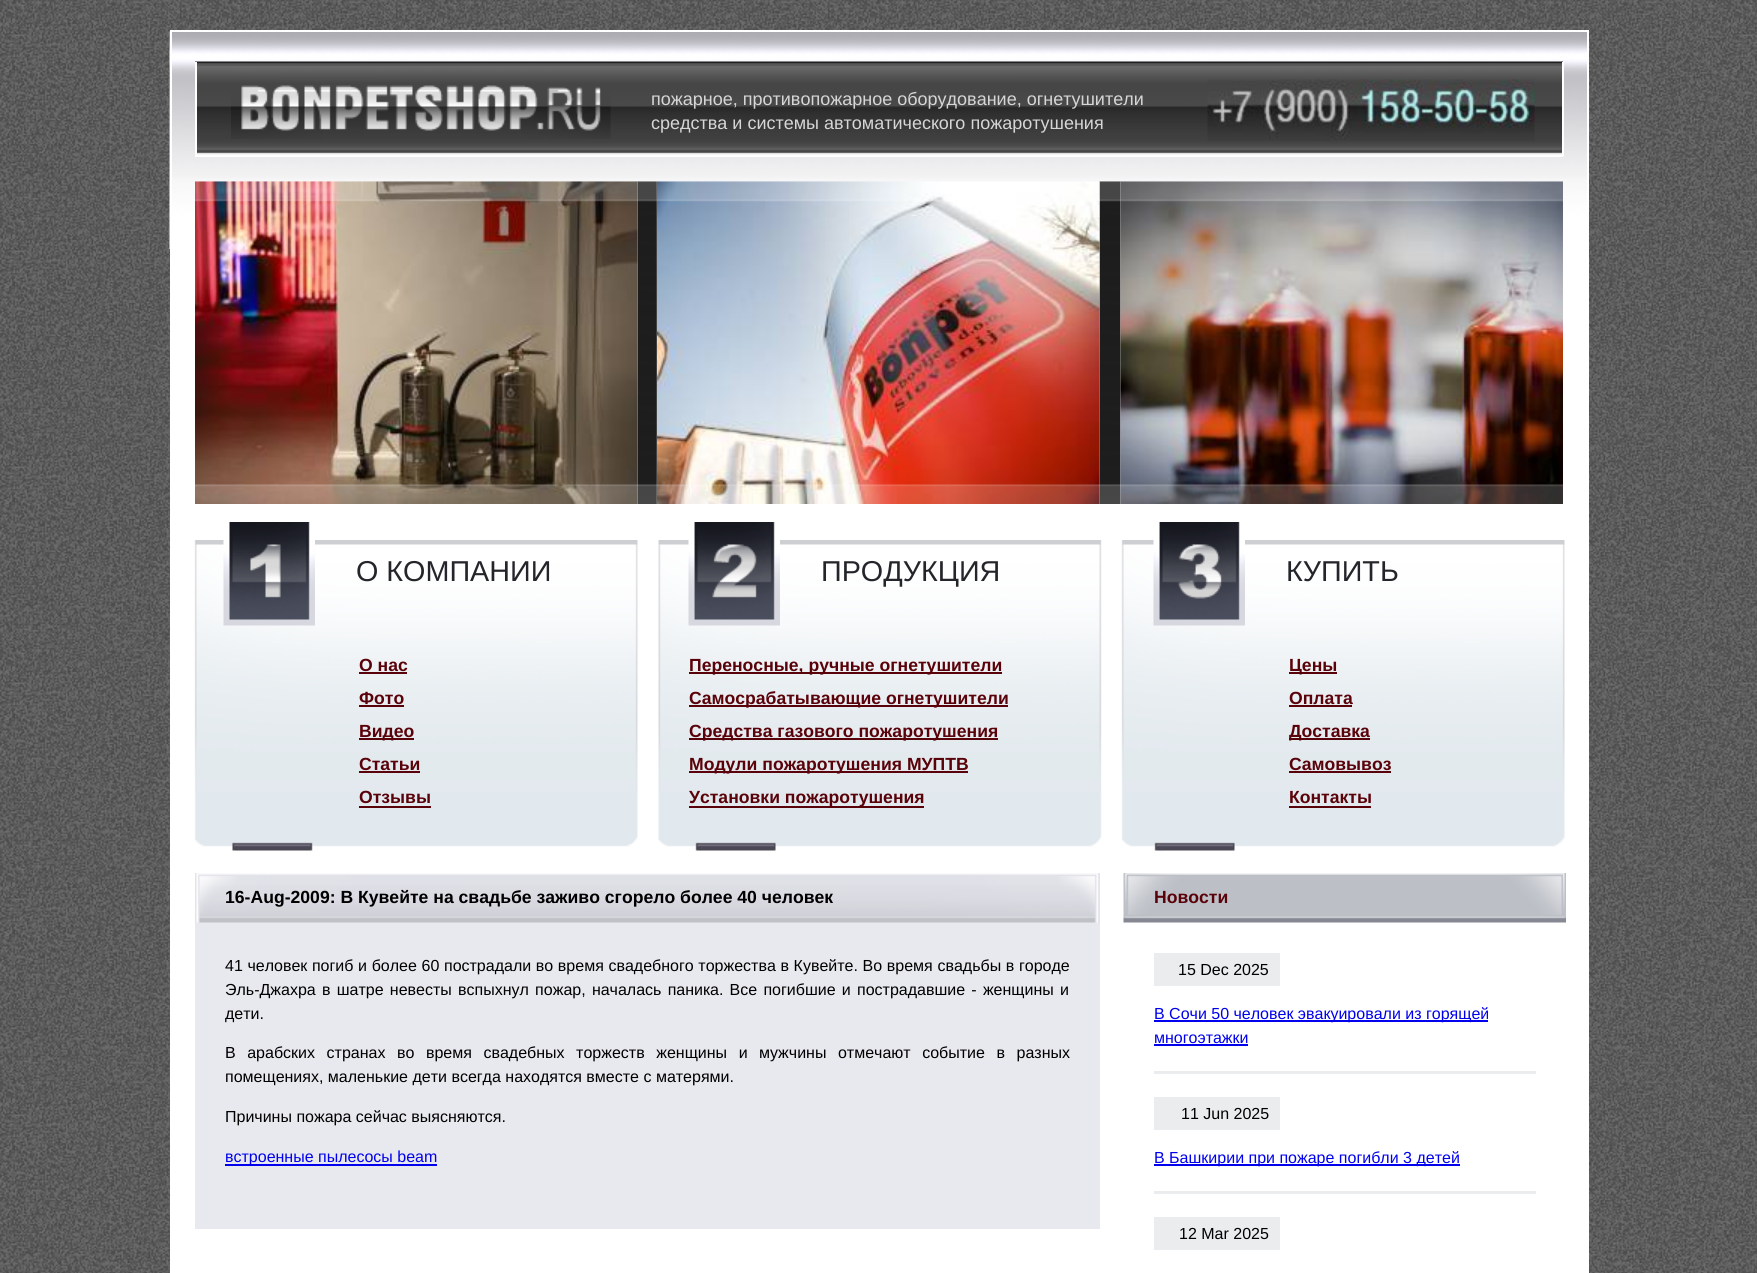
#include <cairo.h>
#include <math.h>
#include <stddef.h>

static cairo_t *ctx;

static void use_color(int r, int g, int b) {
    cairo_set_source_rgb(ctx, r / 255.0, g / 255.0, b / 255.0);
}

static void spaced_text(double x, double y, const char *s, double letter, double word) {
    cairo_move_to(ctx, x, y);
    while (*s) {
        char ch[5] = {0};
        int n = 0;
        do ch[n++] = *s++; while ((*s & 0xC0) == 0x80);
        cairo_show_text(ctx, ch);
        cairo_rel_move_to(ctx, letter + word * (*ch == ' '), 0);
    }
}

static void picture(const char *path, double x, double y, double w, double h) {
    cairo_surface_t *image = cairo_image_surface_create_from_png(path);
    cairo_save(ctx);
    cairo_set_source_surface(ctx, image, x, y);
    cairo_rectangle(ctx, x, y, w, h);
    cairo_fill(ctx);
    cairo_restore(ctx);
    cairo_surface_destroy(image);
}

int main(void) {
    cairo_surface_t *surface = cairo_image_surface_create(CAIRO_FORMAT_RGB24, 1757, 1273);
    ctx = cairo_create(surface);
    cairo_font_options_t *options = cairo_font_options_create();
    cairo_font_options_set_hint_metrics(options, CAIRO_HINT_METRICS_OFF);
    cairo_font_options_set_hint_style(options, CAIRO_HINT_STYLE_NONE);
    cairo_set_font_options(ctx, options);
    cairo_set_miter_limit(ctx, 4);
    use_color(255, 255, 255);
    cairo_paint(ctx);
    picture("img1.png", 0, 0, 1757, 1273);
    use_color(255, 255, 255);
    cairo_rectangle(ctx, 172, 249, 1415, 622);
    cairo_fill(ctx);
    picture("img2.png", 169, 31, 1418, 218);
    cairo_rectangle(ctx, 171, 31, 1417, 841);
    cairo_stroke(ctx);
    picture("img3.png", 195, 61, 1368, 94);
    cairo_rectangle(ctx, 1562, 62, 2, 94);
    cairo_fill(ctx);
    cairo_rectangle(ctx, 195, 155, 1368, 2);
    cairo_fill(ctx);
    cairo_rectangle(ctx, 195, 62, 2, 94);
    cairo_fill(ctx);
    picture("img4.png", 231, 85, 380, 54);
    cairo_select_font_face(ctx, "Liberation Sans", CAIRO_FONT_SLANT_NORMAL, CAIRO_FONT_WEIGHT_NORMAL);
    cairo_set_font_size(ctx, 18);
    use_color(215, 214, 214);
    cairo_move_to(ctx, 651, 105);
    cairo_show_text(ctx, "пожарное, противопожарное оборудование, огнетушители");
    cairo_move_to(ctx, 651, 129);
    cairo_show_text(ctx, "средства и системы автоматического пожаротушения");
    picture("img5.png", 1207, 79, 328, 62);
    picture("img6.png", 637, 181, 484, 323);
    picture("img7.png", 195, 181, 443, 323);
    picture("img8.png", 657, 181, 443, 323);
    picture("img9.png", 1120, 181, 443, 323);
    picture("img10.png", 195, 181, 1368, 323);
    picture("img11.png", 194, 540, 1371, 311);
    picture("img12.png", 223, 522, 92, 104);
    cairo_set_font_size(ctx, 28.75);
    use_color(36, 37, 42);
    cairo_move_to(ctx, 356, 581);
    cairo_show_text(ctx, "О КОМПАНИИ");
    cairo_select_font_face(ctx, "Liberation Sans", CAIRO_FONT_SLANT_NORMAL, CAIRO_FONT_WEIGHT_BOLD);
    cairo_set_font_size(ctx, 17.6);
    use_color(90, 2, 9);
    cairo_move_to(ctx, 359, 671);
    cairo_show_text(ctx, "О нас");
    cairo_rectangle(ctx, 359, 672, 48, 2);
    cairo_fill(ctx);
    cairo_move_to(ctx, 359, 704);
    cairo_show_text(ctx, "Фото");
    cairo_rectangle(ctx, 359, 705, 45, 2);
    cairo_fill(ctx);
    cairo_rectangle(ctx, 359, 738, 55, 2);
    cairo_fill(ctx);
    cairo_move_to(ctx, 359, 737);
    cairo_show_text(ctx, "Видео");
    cairo_move_to(ctx, 359, 770);
    cairo_show_text(ctx, "Статьи");
    cairo_rectangle(ctx, 359, 771, 61, 2);
    cairo_fill(ctx);
    cairo_move_to(ctx, 359, 803);
    cairo_show_text(ctx, "Отзывы");
    cairo_rectangle(ctx, 359, 806, 72, 2);
    cairo_fill(ctx);
    picture("img13.png", 688, 522, 92, 104);
    cairo_select_font_face(ctx, "Liberation Sans", CAIRO_FONT_SLANT_NORMAL, CAIRO_FONT_WEIGHT_NORMAL);
    cairo_set_font_size(ctx, 28.75);
    use_color(36, 37, 42);
    cairo_move_to(ctx, 821, 581);
    cairo_show_text(ctx, "ПРОДУКЦИЯ");
    use_color(90, 2, 9);
    cairo_rectangle(ctx, 689, 672, 313, 2);
    cairo_fill(ctx);
    cairo_select_font_face(ctx, "Liberation Sans", CAIRO_FONT_SLANT_NORMAL, CAIRO_FONT_WEIGHT_BOLD);
    cairo_set_font_size(ctx, 17.6);
    cairo_move_to(ctx, 689, 671);
    cairo_show_text(ctx, "Переносные, ручные огнетушители");
    cairo_rectangle(ctx, 689, 705, 319, 2);
    cairo_fill(ctx);
    cairo_move_to(ctx, 689, 704);
    cairo_show_text(ctx, "Самосрабатывающие огнетушители");
    cairo_rectangle(ctx, 689, 738, 309, 2);
    cairo_fill(ctx);
    cairo_move_to(ctx, 689, 737);
    cairo_show_text(ctx, "Средства газового пожаротушения");
    cairo_rectangle(ctx, 689, 771, 279, 2);
    cairo_fill(ctx);
    cairo_move_to(ctx, 689, 770);
    cairo_show_text(ctx, "Модули пожаротушения МУПТВ");
    cairo_rectangle(ctx, 689, 806, 235, 2);
    cairo_fill(ctx);
    cairo_move_to(ctx, 689, 803);
    cairo_show_text(ctx, "Установки пожаротушения");
    picture("img14.png", 1153, 522, 92, 104);
    cairo_select_font_face(ctx, "Liberation Sans", CAIRO_FONT_SLANT_NORMAL, CAIRO_FONT_WEIGHT_NORMAL);
    cairo_set_font_size(ctx, 28.75);
    use_color(36, 37, 42);
    cairo_move_to(ctx, 1286, 581);
    cairo_show_text(ctx, "КУПИТЬ");
    use_color(90, 2, 9);
    cairo_rectangle(ctx, 1289, 672, 48, 2);
    cairo_fill(ctx);
    cairo_select_font_face(ctx, "Liberation Sans", CAIRO_FONT_SLANT_NORMAL, CAIRO_FONT_WEIGHT_BOLD);
    cairo_set_font_size(ctx, 17.6);
    cairo_move_to(ctx, 1289, 671);
    cairo_show_text(ctx, "Цены");
    cairo_move_to(ctx, 1289, 704);
    cairo_show_text(ctx, "Оплата");
    cairo_rectangle(ctx, 1289, 705, 63, 2);
    cairo_fill(ctx);
    cairo_rectangle(ctx, 1289, 738, 81, 2);
    cairo_fill(ctx);
    cairo_move_to(ctx, 1289, 737);
    cairo_show_text(ctx, "Доставка");
    cairo_move_to(ctx, 1289, 770);
    cairo_show_text(ctx, "Самовывоз");
    cairo_rectangle(ctx, 1289, 771, 102, 2);
    cairo_fill(ctx);
    cairo_move_to(ctx, 1289, 803);
    cairo_show_text(ctx, "Контакты");
    cairo_rectangle(ctx, 1289, 806, 82, 2);
    cairo_fill(ctx);
    use_color(255, 255, 255);
    cairo_rectangle(ctx, 170, 873, 1419, 400);
    cairo_fill(ctx);
    use_color(232, 233, 238);
    cairo_rectangle(ctx, 195, 873, 905, 356);
    cairo_fill(ctx);
    picture("img15.png", 195, 873, 905, 50);
    use_color(0, 0, 0);
    cairo_move_to(ctx, 225, 903);
    cairo_show_text(ctx, "16-Aug-2009: В Кувейте на свадьбе заживо сгорело более 40 человек");
    cairo_select_font_face(ctx, "Liberation Sans", CAIRO_FONT_SLANT_NORMAL, CAIRO_FONT_WEIGHT_NORMAL);
    cairo_set_font_size(ctx, 16);
    spaced_text(225, 971, "41 человек погиб и более 60 пострадали во время свадебного торжества в Кувейте. Во время свадьбы в городе", 0, 0.2);
    spaced_text(225, 995, "Эль-Джахра в шатре невесты вспыхнул пожар, началась паника. Все погибшие и пострадавшие - женщины и", 0, 1.8);
    cairo_move_to(ctx, 225, 1019);
    cairo_show_text(ctx, "дети.");
    spaced_text(225, 1058, "В арабских странах во время свадебных торжеств женщины и мужчины отмечают событие в разных", 0, 7.1);
    cairo_move_to(ctx, 225, 1082);
    cairo_show_text(ctx, "помещениях, маленькие дети всегда находятся вместе с матерями.");
    cairo_move_to(ctx, 225, 1122);
    cairo_show_text(ctx, "Причины пожара сейчас выясняются.");
    use_color(0, 0, 238);
    cairo_rectangle(ctx, 225, 1164, 212, 2);
    cairo_fill(ctx);
    cairo_move_to(ctx, 225, 1162);
    cairo_show_text(ctx, "встроенные пылесосы beam");
    picture("img16.png", 1123, 873, 443, 50);
    cairo_select_font_face(ctx, "Liberation Sans", CAIRO_FONT_SLANT_NORMAL, CAIRO_FONT_WEIGHT_BOLD);
    cairo_set_font_size(ctx, 17.6);
    use_color(90, 2, 9);
    cairo_move_to(ctx, 1154, 903);
    cairo_show_text(ctx, "Новости");
    use_color(234, 236, 238);
    cairo_rectangle(ctx, 1154, 1071, 382, 3);
    cairo_fill(ctx);
    cairo_rectangle(ctx, 1154, 953, 126, 33);
    cairo_fill(ctx);
    cairo_select_font_face(ctx, "Liberation Sans", CAIRO_FONT_SLANT_NORMAL, CAIRO_FONT_WEIGHT_NORMAL);
    cairo_set_font_size(ctx, 16);
    use_color(0, 0, 0);
    cairo_move_to(ctx, 1178, 975);
    cairo_show_text(ctx, "15 Dec 2025");
    use_color(0, 0, 238);
    cairo_rectangle(ctx, 1154, 1020, 334, 2);
    cairo_fill(ctx);
    cairo_move_to(ctx, 1154, 1019);
    cairo_show_text(ctx, "В Сочи 50 человек эвакуировали из горящей");
    cairo_move_to(ctx, 1154, 1043);
    cairo_show_text(ctx, "многоэтажки");
    cairo_rectangle(ctx, 1154, 1044, 94, 2);
    cairo_fill(ctx);
    use_color(234, 236, 238);
    cairo_rectangle(ctx, 1154, 1191, 382, 3);
    cairo_fill(ctx);
    cairo_rectangle(ctx, 1154, 1097, 126, 33);
    cairo_fill(ctx);
    use_color(0, 0, 0);
    cairo_move_to(ctx, 1181, 1119);
    cairo_show_text(ctx, "11 Jun 2025");
    use_color(0, 0, 238);
    cairo_rectangle(ctx, 1154, 1164, 306, 2);
    cairo_fill(ctx);
    cairo_move_to(ctx, 1154, 1163);
    cairo_show_text(ctx, "В Башкирии при пожаре погибли 3 детей");
    use_color(234, 236, 238);
    cairo_rectangle(ctx, 1154, 1217, 126, 33);
    cairo_fill(ctx);
    use_color(0, 0, 0);
    cairo_move_to(ctx, 1179, 1239);
    cairo_show_text(ctx, "12 Mar 2025");
    cairo_surface_write_to_png(surface, "result.png");
    cairo_font_options_destroy(options);
    cairo_destroy(ctx);
    cairo_surface_destroy(surface);
    return 0;
}
